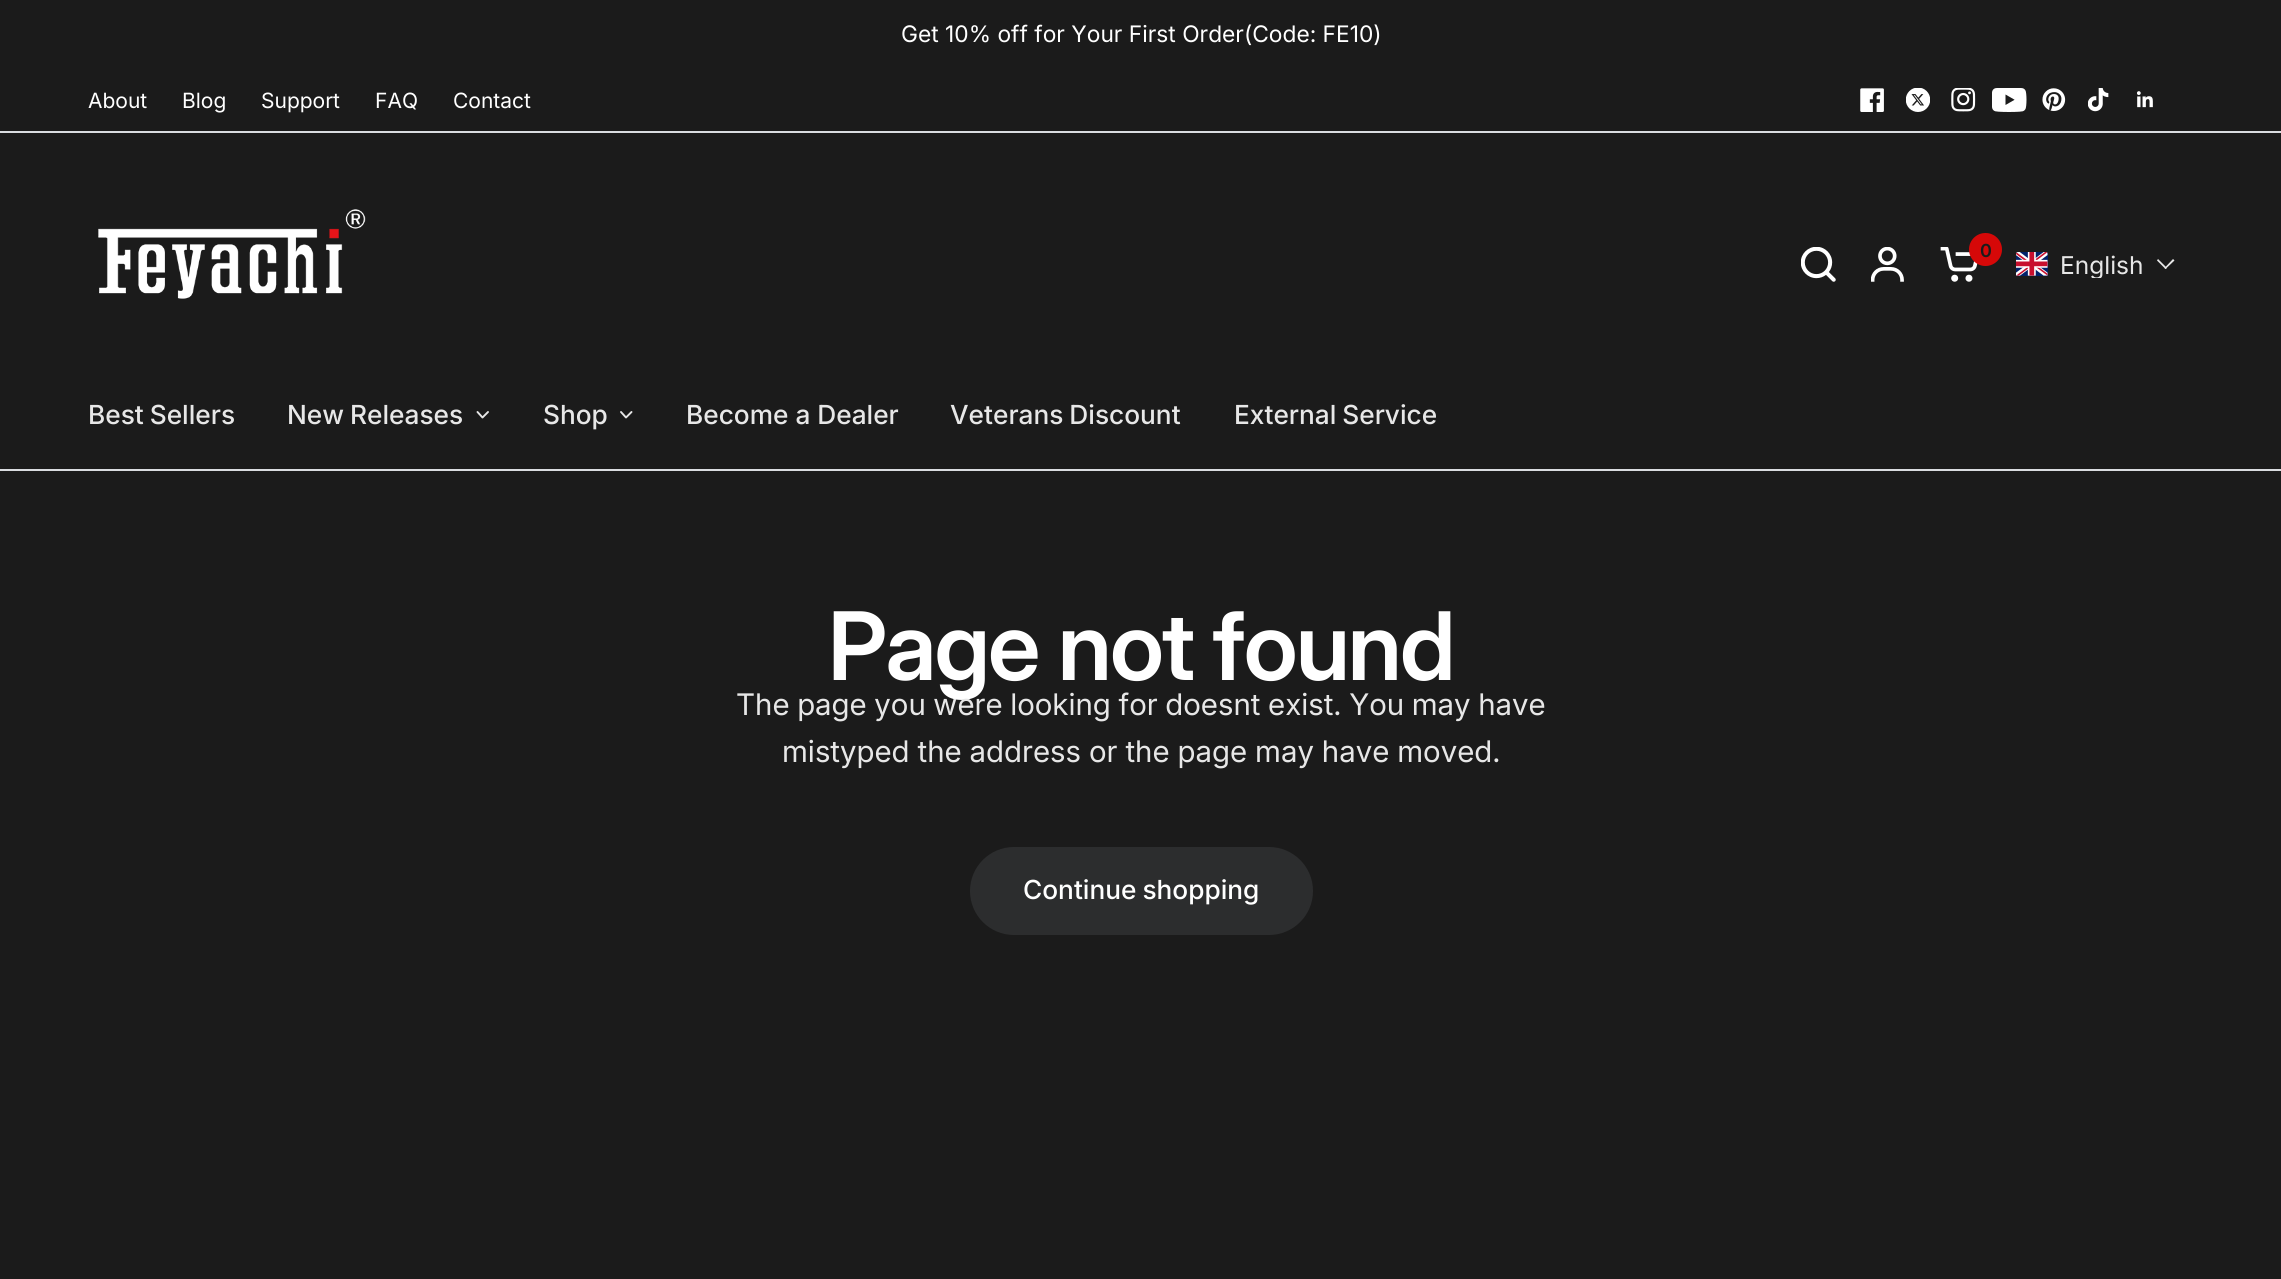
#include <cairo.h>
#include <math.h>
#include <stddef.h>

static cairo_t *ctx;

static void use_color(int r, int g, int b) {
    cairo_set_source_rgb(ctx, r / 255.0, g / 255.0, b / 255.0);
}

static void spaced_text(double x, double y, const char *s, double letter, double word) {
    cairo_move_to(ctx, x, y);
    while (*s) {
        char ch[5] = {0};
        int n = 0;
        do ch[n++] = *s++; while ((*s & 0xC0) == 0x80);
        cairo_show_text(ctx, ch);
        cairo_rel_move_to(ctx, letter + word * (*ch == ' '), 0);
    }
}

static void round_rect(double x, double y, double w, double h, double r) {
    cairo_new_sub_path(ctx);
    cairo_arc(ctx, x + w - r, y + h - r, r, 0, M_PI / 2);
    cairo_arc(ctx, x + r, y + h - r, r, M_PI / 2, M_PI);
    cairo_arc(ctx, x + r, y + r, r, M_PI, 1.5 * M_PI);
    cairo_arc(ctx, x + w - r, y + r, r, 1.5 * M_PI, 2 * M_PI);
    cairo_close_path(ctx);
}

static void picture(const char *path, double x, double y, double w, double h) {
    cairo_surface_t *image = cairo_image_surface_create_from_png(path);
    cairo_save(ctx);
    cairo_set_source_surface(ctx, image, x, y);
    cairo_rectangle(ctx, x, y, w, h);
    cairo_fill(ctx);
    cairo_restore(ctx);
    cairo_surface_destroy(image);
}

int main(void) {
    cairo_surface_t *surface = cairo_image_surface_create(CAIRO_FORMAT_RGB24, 2281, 1279);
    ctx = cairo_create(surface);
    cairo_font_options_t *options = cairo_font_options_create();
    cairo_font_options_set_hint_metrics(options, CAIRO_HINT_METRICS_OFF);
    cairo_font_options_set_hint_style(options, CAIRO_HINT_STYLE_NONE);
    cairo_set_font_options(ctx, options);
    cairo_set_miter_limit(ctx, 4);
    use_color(27, 27, 27);
    cairo_paint(ctx);
    cairo_select_font_face(ctx, "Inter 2", CAIRO_FONT_SLANT_NORMAL, CAIRO_FONT_WEIGHT_NORMAL);
    cairo_set_font_size(ctx, 22.75);
    use_color(255, 255, 255);
    cairo_move_to(ctx, 901, 42);
    cairo_show_text(ctx, "Get 10% off for Your First Order(Code: FE10)");
    use_color(218, 220, 224);
    cairo_rectangle(ctx, 0, 131, 2281, 2);
    cairo_fill(ctx);
    cairo_set_font_size(ctx, 21);
    use_color(255, 255, 255);
    cairo_move_to(ctx, 88, 108);
    cairo_show_text(ctx, "About");
    cairo_move_to(ctx, 182, 108);
    cairo_show_text(ctx, "Blog");
    cairo_move_to(ctx, 261, 108);
    cairo_show_text(ctx, "Support");
    cairo_move_to(ctx, 375, 108);
    cairo_show_text(ctx, "FAQ");
    cairo_move_to(ctx, 453, 108);
    cairo_show_text(ctx, "Contact");
    picture("img1.png", 1860, 88, 24, 24);
    picture("img2.png", 1906, 88, 24, 24);
    picture("img3.png", 1951, 88, 25, 24);
    picture("img4.png", 1992, 88, 35, 24);
    picture("img5.png", 2042, 88, 24, 23);
    picture("img6.png", 2088, 88, 21, 24);
    picture("img7.png", 2137, 91, 16, 17);
    picture("img8.png", 98, 209, 268, 90);
    picture("img9.png", 1801, 247, 35, 35);
    picture("img10.png", 1871, 247, 33, 35);
    picture("img11.png", 1940, 247, 38, 35);
    use_color(214, 8, 8);
    cairo_arc(ctx, 1985.5, 249.5, 16.5, 0, 2 * M_PI);
    cairo_fill(ctx);
    cairo_select_font_face(ctx, "Inter 2 SemiBold", CAIRO_FONT_SLANT_NORMAL, CAIRO_FONT_WEIGHT_NORMAL);
    cairo_set_font_size(ctx, 18);
    use_color(27, 27, 27);
    cairo_move_to(ctx, 1980, 257);
    cairo_show_text(ctx, "0");
    picture("img12.png", 2016, 252, 32, 24);
    cairo_save(ctx);
    cairo_rectangle(ctx, 2060, 249, 84, 29);
    cairo_clip(ctx);
    cairo_select_font_face(ctx, "Inter 2", CAIRO_FONT_SLANT_NORMAL, CAIRO_FONT_WEIGHT_NORMAL);
    cairo_set_font_size(ctx, 24.5);
    use_color(231, 231, 231);
    cairo_move_to(ctx, 2060, 274);
    cairo_show_text(ctx, "English");
    cairo_restore(ctx);
    use_color(232, 232, 232);
    cairo_new_path(ctx);
    cairo_move_to(ctx, 2173, 259);
    cairo_line_to(ctx, 2174.5, 260.5);
    cairo_line_to(ctx, 2165.5, 269);
    cairo_line_to(ctx, 2164.5, 268);
    cairo_close_path(ctx);
    cairo_fill(ctx);
    cairo_new_path(ctx);
    cairo_move_to(ctx, 2158, 259);
    cairo_line_to(ctx, 2167, 268);
    cairo_line_to(ctx, 2165.5, 269);
    cairo_line_to(ctx, 2157, 260.5);
    cairo_close_path(ctx);
    cairo_fill(ctx);
    cairo_select_font_face(ctx, "Inter Medium", CAIRO_FONT_SLANT_NORMAL, CAIRO_FONT_WEIGHT_NORMAL);
    cairo_set_font_size(ctx, 26.25);
    use_color(231, 231, 231);
    spaced_text(88, 424, "Best Sellers", 0, -1);
    spaced_text(287, 424, "New Releases", 0, -1);
    cairo_new_path(ctx);
    cairo_move_to(ctx, 488, 412);
    cairo_line_to(ctx, 482.5, 417.5);
    cairo_line_to(ctx, 477.5, 412);
    cairo_set_line_width(ctx, 1.9);
    cairo_set_line_cap(ctx, CAIRO_LINE_CAP_ROUND);
    cairo_set_line_join(ctx, CAIRO_LINE_JOIN_ROUND);
    cairo_stroke(ctx);
    cairo_move_to(ctx, 543, 424);
    cairo_show_text(ctx, "Shop");
    cairo_new_path(ctx);
    cairo_move_to(ctx, 631.5, 412);
    cairo_line_to(ctx, 626, 417.5);
    cairo_line_to(ctx, 621, 412);
    cairo_stroke(ctx);
    cairo_move_to(ctx, 686, 424);
    cairo_show_text(ctx, "Become a Dealer");
    spaced_text(950, 424, "Veterans Discount", 0, -1);
    spaced_text(1234, 424, "External Service", 0, -1);
    use_color(218, 220, 224);
    cairo_rectangle(ctx, 0, 469, 2281, 2);
    cairo_fill(ctx);
    cairo_select_font_face(ctx, "Inter SemiBold", CAIRO_FONT_SLANT_NORMAL, CAIRO_FONT_WEIGHT_NORMAL);
    cairo_set_font_size(ctx, 94.5);
    use_color(255, 255, 255);
    spaced_text(828, 680, "Page not found", -1.9, 0);
    cairo_select_font_face(ctx, "Inter", CAIRO_FONT_SLANT_NORMAL, CAIRO_FONT_WEIGHT_NORMAL);
    cairo_set_font_size(ctx, 29.75);
    use_color(231, 231, 231);
    spaced_text(736, 715, "The page you were looking for doesnt exist. You may have", 0, -0.6);
    spaced_text(782, 762, "mistyped the address or the page may have moved.", 0, -0.25);
    use_color(44, 45, 46);
    round_rect(970, 847, 343, 88, 44);
    cairo_fill(ctx);
    cairo_select_font_face(ctx, "Inter Medium", CAIRO_FONT_SLANT_NORMAL, CAIRO_FONT_WEIGHT_NORMAL);
    cairo_set_font_size(ctx, 26.25);
    use_color(255, 255, 255);
    spaced_text(1023, 899, "Continue shopping", 0, -1);
    cairo_surface_write_to_png(surface, "result.png");
    cairo_font_options_destroy(options);
    cairo_destroy(ctx);
    cairo_surface_destroy(surface);
    return 0;
}
